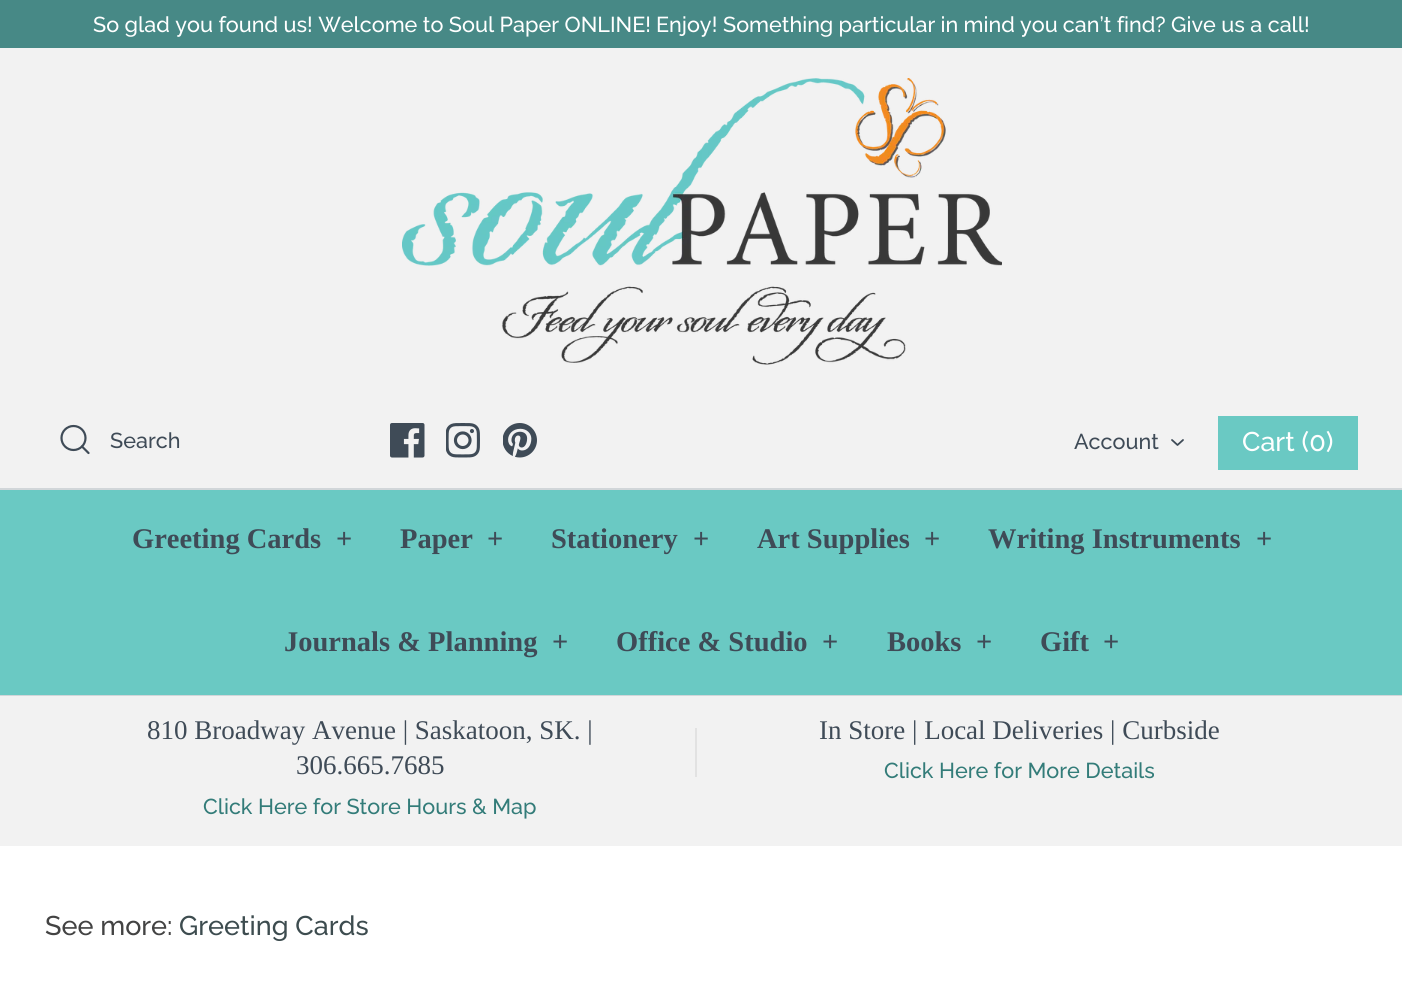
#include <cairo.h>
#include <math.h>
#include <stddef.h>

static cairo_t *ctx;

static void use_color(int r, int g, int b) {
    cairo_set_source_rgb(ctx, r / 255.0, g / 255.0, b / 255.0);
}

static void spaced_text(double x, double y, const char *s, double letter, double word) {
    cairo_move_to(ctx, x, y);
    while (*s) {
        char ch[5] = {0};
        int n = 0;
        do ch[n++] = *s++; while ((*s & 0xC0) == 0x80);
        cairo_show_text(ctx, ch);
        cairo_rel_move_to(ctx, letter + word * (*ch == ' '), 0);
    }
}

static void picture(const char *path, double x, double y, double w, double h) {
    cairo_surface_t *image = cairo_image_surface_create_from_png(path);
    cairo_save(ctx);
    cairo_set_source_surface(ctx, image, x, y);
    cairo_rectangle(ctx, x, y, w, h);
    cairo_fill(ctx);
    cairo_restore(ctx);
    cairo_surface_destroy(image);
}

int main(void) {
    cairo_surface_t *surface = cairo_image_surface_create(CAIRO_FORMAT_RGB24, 1402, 981);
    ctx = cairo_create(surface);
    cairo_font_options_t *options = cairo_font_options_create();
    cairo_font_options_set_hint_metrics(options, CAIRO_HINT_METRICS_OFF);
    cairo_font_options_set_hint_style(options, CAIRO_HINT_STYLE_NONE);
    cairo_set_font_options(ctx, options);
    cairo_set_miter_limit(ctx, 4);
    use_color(255, 255, 255);
    cairo_paint(ctx);
    use_color(71, 137, 134);
    cairo_rectangle(ctx, 0, 0, 1402, 48);
    cairo_fill(ctx);
    cairo_select_font_face(ctx, "Raleway Medium", CAIRO_FONT_SLANT_NORMAL, CAIRO_FONT_WEIGHT_NORMAL);
    cairo_set_font_size(ctx, 21.6);
    use_color(255, 255, 255);
    cairo_move_to(ctx, 93, 32);
    cairo_show_text(ctx, "So glad you found us! Welcome to Soul Paper ONLINE!");
    cairo_move_to(ctx, 656, 32);
    cairo_show_text(ctx, "Enjoy!");
    spaced_text(723, 32, "Something particular in mind you can’t find?", 0, -0.25);
    cairo_move_to(ctx, 1171, 32);
    cairo_show_text(ctx, "Give us a call!");
    use_color(242, 242, 242);
    cairo_rectangle(ctx, 0, 48, 1402, 440);
    cairo_fill(ctx);
    picture("img1.png", 402, 78, 600, 287);
    cairo_arc(ctx, 73.5, 438, 12, 0, 2 * M_PI);
    use_color(63, 75, 87);
    cairo_set_line_width(ctx, 2.2);
    cairo_stroke(ctx);
    cairo_new_path(ctx);
    cairo_move_to(ctx, 88.5, 453);
    cairo_line_to(ctx, 82, 446.5);
    cairo_set_line_cap(ctx, CAIRO_LINE_CAP_ROUND);
    cairo_set_line_join(ctx, CAIRO_LINE_JOIN_ROUND);
    cairo_stroke(ctx);
    cairo_move_to(ctx, 110, 448);
    cairo_show_text(ctx, "Search");
    picture("img2.png", 390, 423, 35, 35);
    picture("img3.png", 446, 423, 34, 35);
    picture("img4.png", 503, 423, 34, 35);
    cairo_move_to(ctx, 1074, 449);
    cairo_show_text(ctx, "Account");
    cairo_new_path(ctx);
    cairo_move_to(ctx, 1172, 440);
    cairo_line_to(ctx, 1177.5, 445);
    cairo_line_to(ctx, 1183, 440);
    cairo_set_line_width(ctx, 1.8);
    cairo_stroke(ctx);
    use_color(106, 201, 195);
    cairo_rectangle(ctx, 1218, 416, 140, 54);
    cairo_fill(ctx);
    cairo_set_font_size(ctx, 27);
    use_color(255, 255, 255);
    cairo_move_to(ctx, 1242, 451);
    cairo_show_text(ctx, "Cart (0)");
    use_color(209, 214, 217);
    cairo_rectangle(ctx, 0, 695, 1402, 1);
    cairo_fill(ctx);
    use_color(106, 201, 195);
    cairo_rectangle(ctx, 0, 490, 1402, 205);
    cairo_fill(ctx);
    use_color(209, 214, 217);
    cairo_rectangle(ctx, 0, 488, 1402, 2);
    cairo_fill(ctx);
    cairo_select_font_face(ctx, "Liberation Serif", CAIRO_FONT_SLANT_NORMAL, CAIRO_FONT_WEIGHT_BOLD);
    cairo_set_font_size(ctx, 28.5);
    use_color(63, 75, 87);
    cairo_move_to(ctx, 132, 548);
    cairo_show_text(ctx, "Greeting Cards");
    cairo_move_to(ctx, 336, 548);
    cairo_show_text(ctx, "+");
    cairo_move_to(ctx, 400, 548);
    cairo_show_text(ctx, "Paper");
    cairo_move_to(ctx, 487, 548);
    cairo_show_text(ctx, "+");
    cairo_move_to(ctx, 551, 548);
    cairo_show_text(ctx, "Stationery");
    cairo_move_to(ctx, 693, 548);
    cairo_show_text(ctx, "+");
    cairo_move_to(ctx, 757, 548);
    cairo_show_text(ctx, "Art Supplies");
    cairo_move_to(ctx, 924, 548);
    cairo_show_text(ctx, "+");
    cairo_move_to(ctx, 988, 548);
    cairo_show_text(ctx, "Writing Instruments");
    cairo_move_to(ctx, 1256, 548);
    cairo_show_text(ctx, "+");
    cairo_move_to(ctx, 284, 651);
    cairo_show_text(ctx, "Journals & Planning");
    cairo_move_to(ctx, 552, 651);
    cairo_show_text(ctx, "+");
    cairo_move_to(ctx, 616, 651);
    cairo_show_text(ctx, "Office & Studio");
    cairo_move_to(ctx, 822, 651);
    cairo_show_text(ctx, "+");
    cairo_move_to(ctx, 887, 651);
    cairo_show_text(ctx, "Books");
    cairo_move_to(ctx, 976, 651);
    cairo_show_text(ctx, "+");
    cairo_move_to(ctx, 1040, 651);
    cairo_show_text(ctx, "Gift");
    cairo_move_to(ctx, 1103, 651);
    cairo_show_text(ctx, "+");
    use_color(242, 242, 242);
    cairo_rectangle(ctx, 0, 696, 1402, 150);
    cairo_fill(ctx);
    cairo_select_font_face(ctx, "Liberation Serif", CAIRO_FONT_SLANT_NORMAL, CAIRO_FONT_WEIGHT_NORMAL);
    cairo_set_font_size(ctx, 27);
    use_color(63, 75, 87);
    cairo_move_to(ctx, 147, 739);
    cairo_show_text(ctx, "810 Broadway Avenue | Saskatoon, SK. |");
    cairo_move_to(ctx, 296, 774);
    cairo_show_text(ctx, "306.665.7685");
    cairo_select_font_face(ctx, "Raleway Medium", CAIRO_FONT_SLANT_NORMAL, CAIRO_FONT_WEIGHT_NORMAL);
    cairo_set_font_size(ctx, 21.6);
    use_color(51, 124, 121);
    cairo_move_to(ctx, 203, 814);
    cairo_show_text(ctx, "Click Here for Store Hours & Map");
    use_color(226, 226, 226);
    cairo_rectangle(ctx, 695, 728, 2, 49);
    cairo_fill(ctx);
    cairo_select_font_face(ctx, "Liberation Serif", CAIRO_FONT_SLANT_NORMAL, CAIRO_FONT_WEIGHT_NORMAL);
    cairo_set_font_size(ctx, 27);
    use_color(63, 75, 87);
    cairo_move_to(ctx, 819, 739);
    cairo_show_text(ctx, "In Store | Local Deliveries | Curbside");
    cairo_select_font_face(ctx, "Raleway Medium", CAIRO_FONT_SLANT_NORMAL, CAIRO_FONT_WEIGHT_NORMAL);
    cairo_set_font_size(ctx, 21.6);
    use_color(51, 124, 121);
    cairo_move_to(ctx, 884, 778);
    cairo_show_text(ctx, "Click Here for More Details");
    cairo_set_font_size(ctx, 27);
    use_color(67, 67, 67);
    cairo_move_to(ctx, 45, 935);
    cairo_show_text(ctx, "See more:");
    use_color(61, 76, 79);
    cairo_move_to(ctx, 179, 935);
    cairo_show_text(ctx, "Greeting Cards");
    cairo_surface_write_to_png(surface, "result.png");
    cairo_font_options_destroy(options);
    cairo_destroy(ctx);
    cairo_surface_destroy(surface);
    return 0;
}
